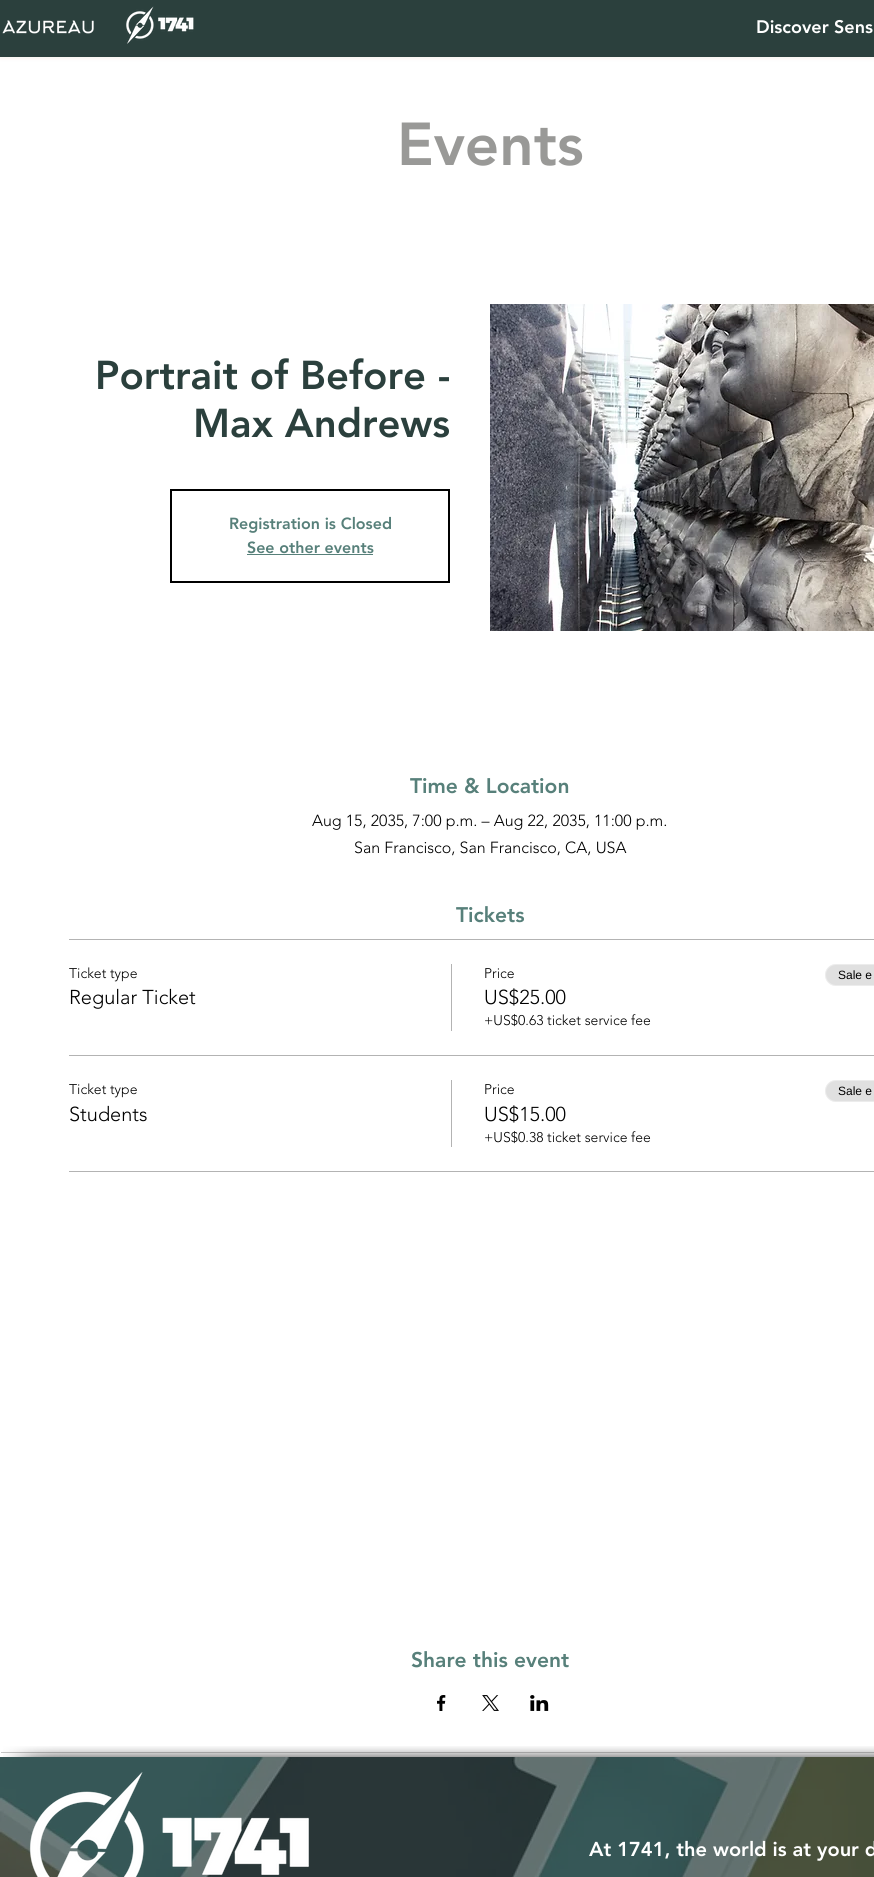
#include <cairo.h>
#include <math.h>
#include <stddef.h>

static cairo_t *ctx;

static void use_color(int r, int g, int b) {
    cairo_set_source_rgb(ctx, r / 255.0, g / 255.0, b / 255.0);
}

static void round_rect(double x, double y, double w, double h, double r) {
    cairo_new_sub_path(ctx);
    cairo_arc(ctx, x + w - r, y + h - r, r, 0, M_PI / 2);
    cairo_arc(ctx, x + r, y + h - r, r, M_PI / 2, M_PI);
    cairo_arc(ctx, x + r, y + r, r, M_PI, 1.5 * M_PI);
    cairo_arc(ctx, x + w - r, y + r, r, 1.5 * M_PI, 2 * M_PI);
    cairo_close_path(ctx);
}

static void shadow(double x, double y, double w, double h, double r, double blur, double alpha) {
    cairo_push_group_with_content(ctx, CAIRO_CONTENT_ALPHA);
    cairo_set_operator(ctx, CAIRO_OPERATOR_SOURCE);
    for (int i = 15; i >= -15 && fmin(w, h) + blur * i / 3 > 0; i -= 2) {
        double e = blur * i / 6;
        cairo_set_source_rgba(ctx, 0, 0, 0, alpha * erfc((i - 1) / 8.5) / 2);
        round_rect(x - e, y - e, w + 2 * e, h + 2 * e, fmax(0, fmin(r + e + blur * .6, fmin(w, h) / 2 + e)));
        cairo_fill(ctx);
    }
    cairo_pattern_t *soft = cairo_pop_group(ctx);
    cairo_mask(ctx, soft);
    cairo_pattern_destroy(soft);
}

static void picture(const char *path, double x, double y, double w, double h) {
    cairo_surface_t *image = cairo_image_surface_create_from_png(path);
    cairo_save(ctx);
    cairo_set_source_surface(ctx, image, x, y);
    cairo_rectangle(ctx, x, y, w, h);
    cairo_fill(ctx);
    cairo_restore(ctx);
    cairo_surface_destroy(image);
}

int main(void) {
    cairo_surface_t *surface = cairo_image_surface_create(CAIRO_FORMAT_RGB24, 874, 1877);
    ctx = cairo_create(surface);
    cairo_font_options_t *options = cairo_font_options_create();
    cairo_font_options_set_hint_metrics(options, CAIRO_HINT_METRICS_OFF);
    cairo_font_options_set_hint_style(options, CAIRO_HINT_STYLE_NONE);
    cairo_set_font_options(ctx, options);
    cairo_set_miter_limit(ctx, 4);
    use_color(255, 255, 255);
    cairo_paint(ctx);
    use_color(225, 216, 198);
    shadow(0, 0, 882, 57, 0, 2.5, 0.5);
    use_color(43, 64, 61);
    cairo_rectangle(ctx, 0, 0, 874, 57);
    cairo_fill(ctx);
    picture("img1.png", 126, 6, 68, 38);
    picture("img2.png", 2, 20, 92, 14);
    cairo_select_font_face(ctx, "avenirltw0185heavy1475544 Black", CAIRO_FONT_SLANT_NORMAL, CAIRO_FONT_WEIGHT_NORMAL);
    cairo_set_font_size(ctx, 18);
    use_color(255, 255, 255);
    cairo_move_to(ctx, 756, 33);
    cairo_show_text(ctx, "Discover Sens");
    cairo_set_font_size(ctx, 60);
    use_color(153, 153, 151);
    cairo_move_to(ctx, 397, 165);
    cairo_show_text(ctx, "Events");
    cairo_set_font_size(ctx, 40);
    use_color(43, 64, 61);
    cairo_move_to(ctx, 95, 389);
    cairo_show_text(ctx, "Portrait of Before -");
    cairo_move_to(ctx, 193, 437);
    cairo_show_text(ctx, "Max Andrews");
    cairo_rectangle(ctx, 171, 490, 278, 92);
    use_color(0, 0, 0);
    cairo_stroke(ctx);
    cairo_set_font_size(ctx, 16);
    use_color(87, 128, 122);
    cairo_move_to(ctx, 229, 529);
    cairo_show_text(ctx, "Registration is Closed");
    cairo_move_to(ctx, 247, 553);
    cairo_show_text(ctx, "See other events");
    cairo_rectangle(ctx, 247, 554, 126, 1);
    cairo_fill(ctx);
    picture("img3.png", 490, 304, 384, 327);
    cairo_set_font_size(ctx, 21);
    cairo_move_to(ctx, 410, 793);
    cairo_show_text(ctx, "Time & Location");
    cairo_select_font_face(ctx, "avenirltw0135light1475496 Light", CAIRO_FONT_SLANT_NORMAL, CAIRO_FONT_WEIGHT_NORMAL);
    cairo_set_font_size(ctx, 16);
    use_color(0, 0, 0);
    cairo_move_to(ctx, 312, 826);
    cairo_show_text(ctx, "Aug 15, 2035, 7:00 p.m. – Aug 22, 2035, 11:00 p.m.");
    cairo_move_to(ctx, 354, 853);
    cairo_show_text(ctx, "San Francisco, San Francisco, CA, USA");
    cairo_select_font_face(ctx, "avenirltw0185heavy1475544 Black", CAIRO_FONT_SLANT_NORMAL, CAIRO_FONT_WEIGHT_NORMAL);
    cairo_set_font_size(ctx, 21);
    use_color(87, 128, 122);
    cairo_move_to(ctx, 456, 922);
    cairo_show_text(ctx, "Tickets");
    use_color(179, 179, 179);
    cairo_rectangle(ctx, 69, 939, 805, 1);
    cairo_fill(ctx);
    cairo_rectangle(ctx, 69, 1055, 805, 1);
    cairo_fill(ctx);
    cairo_select_font_face(ctx, "avenirltw0135light1475496 Light", CAIRO_FONT_SLANT_NORMAL, CAIRO_FONT_WEIGHT_NORMAL);
    cairo_set_font_size(ctx, 14);
    use_color(0, 0, 0);
    cairo_move_to(ctx, 69, 978);
    cairo_show_text(ctx, "Ticket type");
    cairo_set_font_size(ctx, 20);
    cairo_move_to(ctx, 69, 1004);
    cairo_show_text(ctx, "Regular Ticket");
    use_color(179, 179, 179);
    cairo_rectangle(ctx, 451, 964, 1, 67);
    cairo_fill(ctx);
    cairo_set_font_size(ctx, 14);
    use_color(0, 0, 0);
    cairo_move_to(ctx, 484, 978);
    cairo_show_text(ctx, "Price");
    cairo_set_font_size(ctx, 20);
    cairo_move_to(ctx, 484, 1004);
    cairo_show_text(ctx, "US$25.00");
    cairo_set_font_size(ctx, 14);
    cairo_move_to(ctx, 484, 1025);
    cairo_show_text(ctx, "+US$0.63 ticket service fee");
    use_color(224, 224, 224);
    round_rect(825, 964, 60, 22, 11);
    cairo_fill(ctx);
    round_rect(825.5, 964.5, 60, 21, 10.5);
    cairo_set_source_rgba(ctx, 1, 1, 1, 0.4);
    cairo_set_line_width(ctx, 1);
    cairo_stroke(ctx);
    cairo_select_font_face(ctx, "Liberation Sans", CAIRO_FONT_SLANT_NORMAL, CAIRO_FONT_WEIGHT_NORMAL);
    cairo_set_font_size(ctx, 12);
    use_color(0, 0, 0);
    cairo_move_to(ctx, 838, 979);
    cairo_show_text(ctx, "Sale e");
    use_color(179, 179, 179);
    cairo_rectangle(ctx, 69, 1171, 805, 1);
    cairo_fill(ctx);
    cairo_select_font_face(ctx, "avenirltw0135light1475496 Light", CAIRO_FONT_SLANT_NORMAL, CAIRO_FONT_WEIGHT_NORMAL);
    cairo_set_font_size(ctx, 14);
    use_color(0, 0, 0);
    cairo_move_to(ctx, 69, 1094);
    cairo_show_text(ctx, "Ticket type");
    cairo_set_font_size(ctx, 20);
    cairo_move_to(ctx, 69, 1121);
    cairo_show_text(ctx, "Students");
    use_color(179, 179, 179);
    cairo_rectangle(ctx, 451, 1080, 1, 67);
    cairo_fill(ctx);
    cairo_set_font_size(ctx, 14);
    use_color(0, 0, 0);
    cairo_move_to(ctx, 484, 1094);
    cairo_show_text(ctx, "Price");
    cairo_set_font_size(ctx, 20);
    cairo_move_to(ctx, 484, 1121);
    cairo_show_text(ctx, "US$15.00");
    cairo_set_font_size(ctx, 14);
    cairo_move_to(ctx, 484, 1142);
    cairo_show_text(ctx, "+US$0.38 ticket service fee");
    use_color(224, 224, 224);
    round_rect(825, 1080, 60, 22, 11);
    cairo_fill(ctx);
    round_rect(825.5, 1080.5, 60, 21, 10.5);
    cairo_set_source_rgba(ctx, 1, 1, 1, 0.4);
    cairo_stroke(ctx);
    cairo_select_font_face(ctx, "Liberation Sans", CAIRO_FONT_SLANT_NORMAL, CAIRO_FONT_WEIGHT_NORMAL);
    cairo_set_font_size(ctx, 12);
    use_color(0, 0, 0);
    cairo_move_to(ctx, 838, 1095);
    cairo_show_text(ctx, "Sale e");
    cairo_select_font_face(ctx, "avenirltw0185heavy1475544 Black", CAIRO_FONT_SLANT_NORMAL, CAIRO_FONT_WEIGHT_NORMAL);
    cairo_set_font_size(ctx, 21);
    use_color(87, 128, 122);
    cairo_move_to(ctx, 411, 1667);
    cairo_show_text(ctx, "Share this event");
    picture("img4.png", 437, 1695, 9, 16);
    picture("img5.png", 482, 1695, 17, 16);
    picture("img6.png", 530, 1695, 19, 16);
    use_color(199, 199, 199);
    cairo_rectangle(ctx, 1, 1752, 873, 1);
    cairo_fill(ctx);
    picture("img7.png", 3, 1746, 97, 11);
    picture("img8.png", 100, 1746, 774, 11);
    use_color(38, 59, 58);
    cairo_rectangle(ctx, 0, 1757, 874, 120);
    cairo_fill(ctx);
    picture("img9.png", 0, 1757, 874, 120);
    picture("img10.png", 29, 1772, 280, 105);
    cairo_set_font_size(ctx, 20);
    use_color(255, 255, 255);
    cairo_move_to(ctx, 589, 1856);
    cairo_show_text(ctx, "At 1741, the world is at your d");
    cairo_surface_write_to_png(surface, "result.png");
    cairo_font_options_destroy(options);
    cairo_destroy(ctx);
    cairo_surface_destroy(surface);
    return 0;
}
